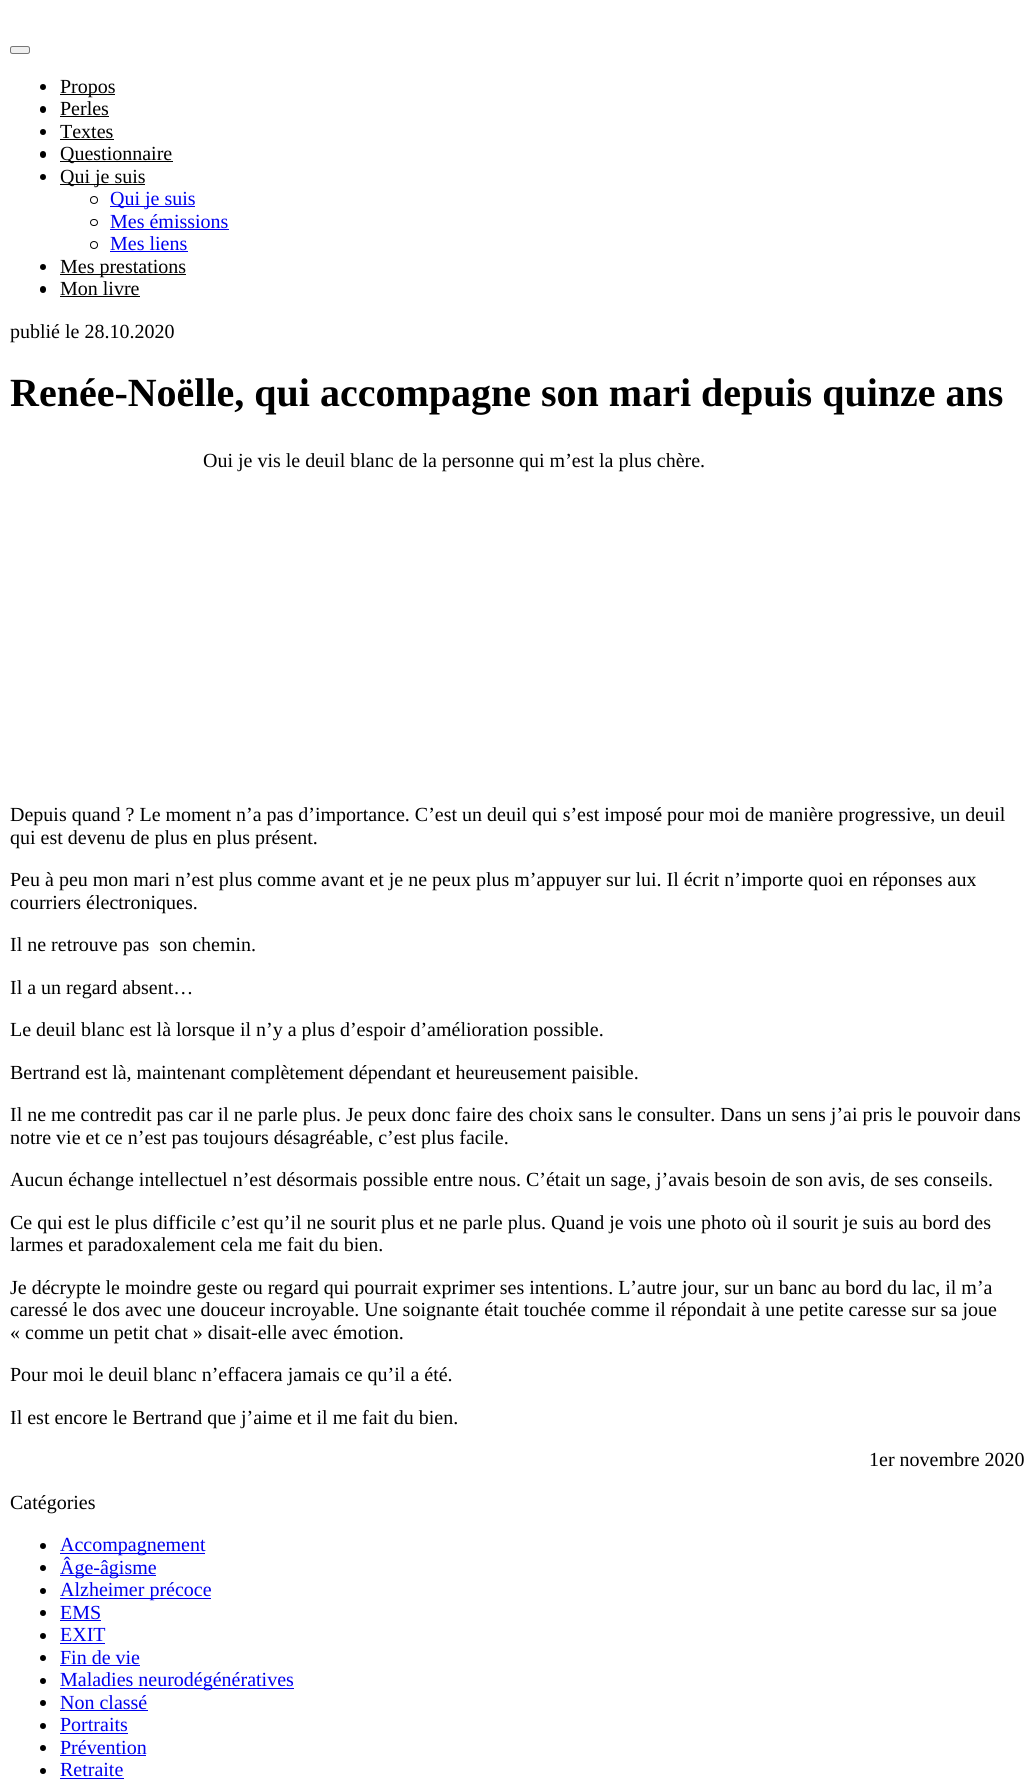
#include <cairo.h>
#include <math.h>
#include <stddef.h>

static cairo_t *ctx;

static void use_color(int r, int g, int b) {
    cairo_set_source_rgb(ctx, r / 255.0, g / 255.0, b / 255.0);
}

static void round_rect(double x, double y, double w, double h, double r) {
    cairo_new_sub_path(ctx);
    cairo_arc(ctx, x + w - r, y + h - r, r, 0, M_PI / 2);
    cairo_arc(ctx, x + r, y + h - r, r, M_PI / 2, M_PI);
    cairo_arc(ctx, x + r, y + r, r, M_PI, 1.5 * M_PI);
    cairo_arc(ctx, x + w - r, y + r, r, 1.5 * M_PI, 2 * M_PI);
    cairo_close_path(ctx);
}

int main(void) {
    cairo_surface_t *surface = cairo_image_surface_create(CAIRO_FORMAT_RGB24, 1034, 1781);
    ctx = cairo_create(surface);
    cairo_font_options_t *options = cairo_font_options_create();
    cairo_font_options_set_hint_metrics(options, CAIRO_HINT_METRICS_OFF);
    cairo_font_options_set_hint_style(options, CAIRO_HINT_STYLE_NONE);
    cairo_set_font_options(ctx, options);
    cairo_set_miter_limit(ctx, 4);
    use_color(255, 255, 255);
    cairo_paint(ctx);
    use_color(239, 239, 239);
    round_rect(10.5, 46.5, 19, 7, 2);
    cairo_fill_preserve(ctx);
    use_color(118, 118, 118);
    cairo_set_line_width(ctx, 1);
    cairo_stroke(ctx);
    use_color(0, 0, 0);
    cairo_arc(ctx, 43, 87, 3, 0, 2 * M_PI);
    cairo_fill(ctx);
    cairo_rectangle(ctx, 60, 94, 55, 1);
    cairo_fill(ctx);
    cairo_select_font_face(ctx, "Liberation Serif", CAIRO_FONT_SLANT_NORMAL, CAIRO_FONT_WEIGHT_NORMAL);
    cairo_set_font_size(ctx, 20);
    cairo_move_to(ctx, 60, 93);
    cairo_show_text(ctx, "Propos");
    round_rect(40, 106, 6, 7, 3);
    cairo_fill(ctx);
    cairo_move_to(ctx, 60, 115);
    cairo_show_text(ctx, "Perles");
    cairo_rectangle(ctx, 60, 116, 49, 1);
    cairo_fill(ctx);
    cairo_arc(ctx, 43, 132, 3, 0, 2 * M_PI);
    cairo_fill(ctx);
    cairo_move_to(ctx, 60, 138);
    cairo_show_text(ctx, "Textes");
    cairo_rectangle(ctx, 60, 139, 54, 1);
    cairo_fill(ctx);
    round_rect(40, 151, 6, 7, 3);
    cairo_fill(ctx);
    cairo_rectangle(ctx, 60, 161, 113, 1);
    cairo_fill(ctx);
    cairo_move_to(ctx, 60, 160);
    cairo_show_text(ctx, "Questionnaire");
    cairo_new_path(ctx);
    cairo_arc(ctx, 43, 177, 3, 0, 2 * M_PI);
    cairo_fill(ctx);
    cairo_rectangle(ctx, 60, 184, 85, 1);
    cairo_fill(ctx);
    cairo_move_to(ctx, 60, 183);
    cairo_show_text(ctx, "Qui je suis");
    cairo_new_path(ctx);
    cairo_arc(ctx, 94, 200, 3.5, 0, 2 * M_PI);
    cairo_stroke(ctx);
    use_color(0, 0, 238);
    cairo_rectangle(ctx, 110, 206, 85, 1);
    cairo_fill(ctx);
    cairo_move_to(ctx, 110, 205);
    cairo_show_text(ctx, "Qui je suis");
    round_rect(90.5, 219.5, 7, 6, 3);
    use_color(0, 0, 0);
    cairo_stroke(ctx);
    use_color(0, 0, 238);
    cairo_move_to(ctx, 110, 228);
    cairo_show_text(ctx, "Mes émissions");
    cairo_rectangle(ctx, 110, 229, 119, 1);
    cairo_fill(ctx);
    cairo_arc(ctx, 94, 245, 3.5, 0, 2 * M_PI);
    use_color(0, 0, 0);
    cairo_stroke(ctx);
    use_color(0, 0, 238);
    cairo_move_to(ctx, 110, 250);
    cairo_show_text(ctx, "Mes liens");
    cairo_rectangle(ctx, 110, 251, 78, 1);
    cairo_fill(ctx);
    use_color(0, 0, 0);
    cairo_arc(ctx, 43, 267, 3, 0, 2 * M_PI);
    cairo_fill(ctx);
    cairo_rectangle(ctx, 60, 274, 126, 1);
    cairo_fill(ctx);
    cairo_move_to(ctx, 60, 273);
    cairo_show_text(ctx, "Mes prestations");
    round_rect(40, 286, 6, 7, 3);
    cairo_fill(ctx);
    cairo_move_to(ctx, 60, 295);
    cairo_show_text(ctx, "Mon livre");
    cairo_rectangle(ctx, 60, 296, 80, 1);
    cairo_fill(ctx);
    cairo_move_to(ctx, 10, 338);
    cairo_show_text(ctx, "publié le 28.10.2020");
    cairo_select_font_face(ctx, "Liberation Serif", CAIRO_FONT_SLANT_NORMAL, CAIRO_FONT_WEIGHT_BOLD);
    cairo_set_font_size(ctx, 40);
    cairo_move_to(ctx, 10, 406);
    cairo_show_text(ctx, "Renée-Noëlle, qui accompagne son mari depuis quinze ans");
    cairo_select_font_face(ctx, "Liberation Serif", CAIRO_FONT_SLANT_NORMAL, CAIRO_FONT_WEIGHT_NORMAL);
    cairo_set_font_size(ctx, 20);
    cairo_move_to(ctx, 203, 467);
    cairo_show_text(ctx, "Oui je vis le deuil blanc de la personne qui m’est la plus chère.");
    cairo_move_to(ctx, 10, 821);
    cairo_show_text(ctx, "Depuis quand ? Le moment n’a pas d’importance. C’est un deuil qui s’est imposé pour moi de manière progressive, un deuil");
    cairo_move_to(ctx, 10, 844);
    cairo_show_text(ctx, "qui est devenu de plus en plus présent.");
    cairo_move_to(ctx, 10, 886);
    cairo_show_text(ctx, "Peu à peu mon mari n’est plus comme avant et je ne peux plus m’appuyer sur lui. Il écrit n’importe quoi en réponses aux");
    cairo_move_to(ctx, 10, 909);
    cairo_show_text(ctx, "courriers électroniques.");
    cairo_move_to(ctx, 10, 951);
    cairo_show_text(ctx, "Il ne retrouve pas  son chemin.");
    cairo_move_to(ctx, 10, 994);
    cairo_show_text(ctx, "Il a un regard absent…");
    cairo_move_to(ctx, 10, 1036);
    cairo_show_text(ctx, "Le deuil blanc est là lorsque il n’y a plus d’espoir d’amélioration possible.");
    cairo_move_to(ctx, 10, 1079);
    cairo_show_text(ctx, "Bertrand est là, maintenant complètement dépendant et heureusement paisible.");
    cairo_move_to(ctx, 10, 1121);
    cairo_show_text(ctx, "Il ne me contredit pas car il ne parle plus. Je peux donc faire des choix sans le consulter. Dans un sens j’ai pris le pouvoir dans");
    cairo_move_to(ctx, 10, 1144);
    cairo_show_text(ctx, "notre vie et ce n’est pas toujours désagréable, c’est plus facile.");
    cairo_move_to(ctx, 10, 1186);
    cairo_show_text(ctx, "Aucun échange intellectuel n’est désormais possible entre nous. C’était un sage, j’avais besoin de son avis, de ses conseils.");
    cairo_move_to(ctx, 10, 1229);
    cairo_show_text(ctx, "Ce qui est le plus difficile c’est qu’il ne sourit plus et ne parle plus. Quand je vois une photo où il sourit je suis au bord des");
    cairo_move_to(ctx, 10, 1251);
    cairo_show_text(ctx, "larmes et paradoxalement cela me fait du bien.");
    cairo_move_to(ctx, 10, 1294);
    cairo_show_text(ctx, "Je décrypte le moindre geste ou regard qui pourrait exprimer ses intentions. L’autre jour, sur un banc au bord du lac, il m’a");
    cairo_move_to(ctx, 10, 1316);
    cairo_show_text(ctx, "caressé le dos avec une douceur incroyable. Une soignante était touchée comme il répondait à une petite caresse sur sa joue");
    cairo_move_to(ctx, 10, 1339);
    cairo_show_text(ctx, "« comme un petit chat » disait-elle avec émotion.");
    cairo_move_to(ctx, 10, 1381);
    cairo_show_text(ctx, "Pour moi le deuil blanc n’effacera jamais ce qu’il a été.");
    cairo_move_to(ctx, 10, 1424);
    cairo_show_text(ctx, "Il est encore le Bertrand que j’aime et il me fait du bien.");
    cairo_move_to(ctx, 869, 1466);
    cairo_show_text(ctx, "1er novembre 2020");
    cairo_move_to(ctx, 10, 1509);
    cairo_show_text(ctx, "Catégories");
    cairo_new_path(ctx);
    cairo_arc(ctx, 43, 1546, 3, 0, 2 * M_PI);
    cairo_fill(ctx);
    use_color(0, 0, 238);
    cairo_rectangle(ctx, 60, 1553, 145, 1);
    cairo_fill(ctx);
    cairo_move_to(ctx, 60, 1551);
    cairo_show_text(ctx, "Accompagnement");
    use_color(0, 0, 0);
    cairo_new_path(ctx);
    cairo_arc(ctx, 43, 1568, 3, 0, 2 * M_PI);
    cairo_fill(ctx);
    use_color(0, 0, 238);
    cairo_rectangle(ctx, 60, 1575, 96, 1);
    cairo_fill(ctx);
    cairo_move_to(ctx, 60, 1574);
    cairo_show_text(ctx, "Âge-âgisme");
    use_color(0, 0, 0);
    cairo_new_path(ctx);
    cairo_arc(ctx, 43, 1591, 3, 0, 2 * M_PI);
    cairo_fill(ctx);
    use_color(0, 0, 238);
    cairo_rectangle(ctx, 60, 1598, 151, 1);
    cairo_fill(ctx);
    cairo_move_to(ctx, 60, 1596);
    cairo_show_text(ctx, "Alzheimer précoce");
    use_color(0, 0, 0);
    cairo_new_path(ctx);
    cairo_arc(ctx, 43, 1613, 3, 0, 2 * M_PI);
    cairo_fill(ctx);
    use_color(0, 0, 238);
    cairo_move_to(ctx, 60, 1619);
    cairo_show_text(ctx, "EMS");
    cairo_rectangle(ctx, 60, 1620, 41, 1);
    cairo_fill(ctx);
    use_color(0, 0, 0);
    cairo_arc(ctx, 43, 1636, 3, 0, 2 * M_PI);
    cairo_fill(ctx);
    use_color(0, 0, 238);
    cairo_move_to(ctx, 60, 1641);
    cairo_show_text(ctx, "EXIT");
    cairo_rectangle(ctx, 60, 1643, 45, 1);
    cairo_fill(ctx);
    use_color(0, 0, 0);
    cairo_arc(ctx, 43, 1658, 3, 0, 2 * M_PI);
    cairo_fill(ctx);
    use_color(0, 0, 238);
    cairo_move_to(ctx, 60, 1664);
    cairo_show_text(ctx, "Fin de vie");
    cairo_rectangle(ctx, 60, 1665, 80, 1);
    cairo_fill(ctx);
    use_color(0, 0, 0);
    cairo_arc(ctx, 43, 1681, 3, 0, 2 * M_PI);
    cairo_fill(ctx);
    use_color(0, 0, 238);
    cairo_rectangle(ctx, 60, 1688, 234, 1);
    cairo_fill(ctx);
    cairo_move_to(ctx, 60, 1686);
    cairo_show_text(ctx, "Maladies neurodégénératives");
    use_color(0, 0, 0);
    cairo_new_path(ctx);
    cairo_arc(ctx, 43, 1703, 3, 0, 2 * M_PI);
    cairo_fill(ctx);
    use_color(0, 0, 238);
    cairo_move_to(ctx, 60, 1709);
    cairo_show_text(ctx, "Non classé");
    cairo_rectangle(ctx, 60, 1710, 88, 1);
    cairo_fill(ctx);
    use_color(0, 0, 0);
    cairo_arc(ctx, 43, 1726, 3, 0, 2 * M_PI);
    cairo_fill(ctx);
    use_color(0, 0, 238);
    cairo_move_to(ctx, 60, 1731);
    cairo_show_text(ctx, "Portraits");
    cairo_rectangle(ctx, 60, 1733, 68, 1);
    cairo_fill(ctx);
    use_color(0, 0, 0);
    cairo_arc(ctx, 43, 1748, 3, 0, 2 * M_PI);
    cairo_fill(ctx);
    use_color(0, 0, 238);
    cairo_move_to(ctx, 60, 1754);
    cairo_show_text(ctx, "Prévention");
    cairo_rectangle(ctx, 60, 1755, 86, 1);
    cairo_fill(ctx);
    use_color(0, 0, 0);
    cairo_arc(ctx, 43, 1771, 3, 0, 2 * M_PI);
    cairo_fill(ctx);
    use_color(0, 0, 238);
    cairo_move_to(ctx, 60, 1776);
    cairo_show_text(ctx, "Retraite");
    cairo_rectangle(ctx, 60, 1778, 64, 1);
    cairo_fill(ctx);
    cairo_surface_write_to_png(surface, "result.png");
    cairo_font_options_destroy(options);
    cairo_destroy(ctx);
    cairo_surface_destroy(surface);
    return 0;
}
